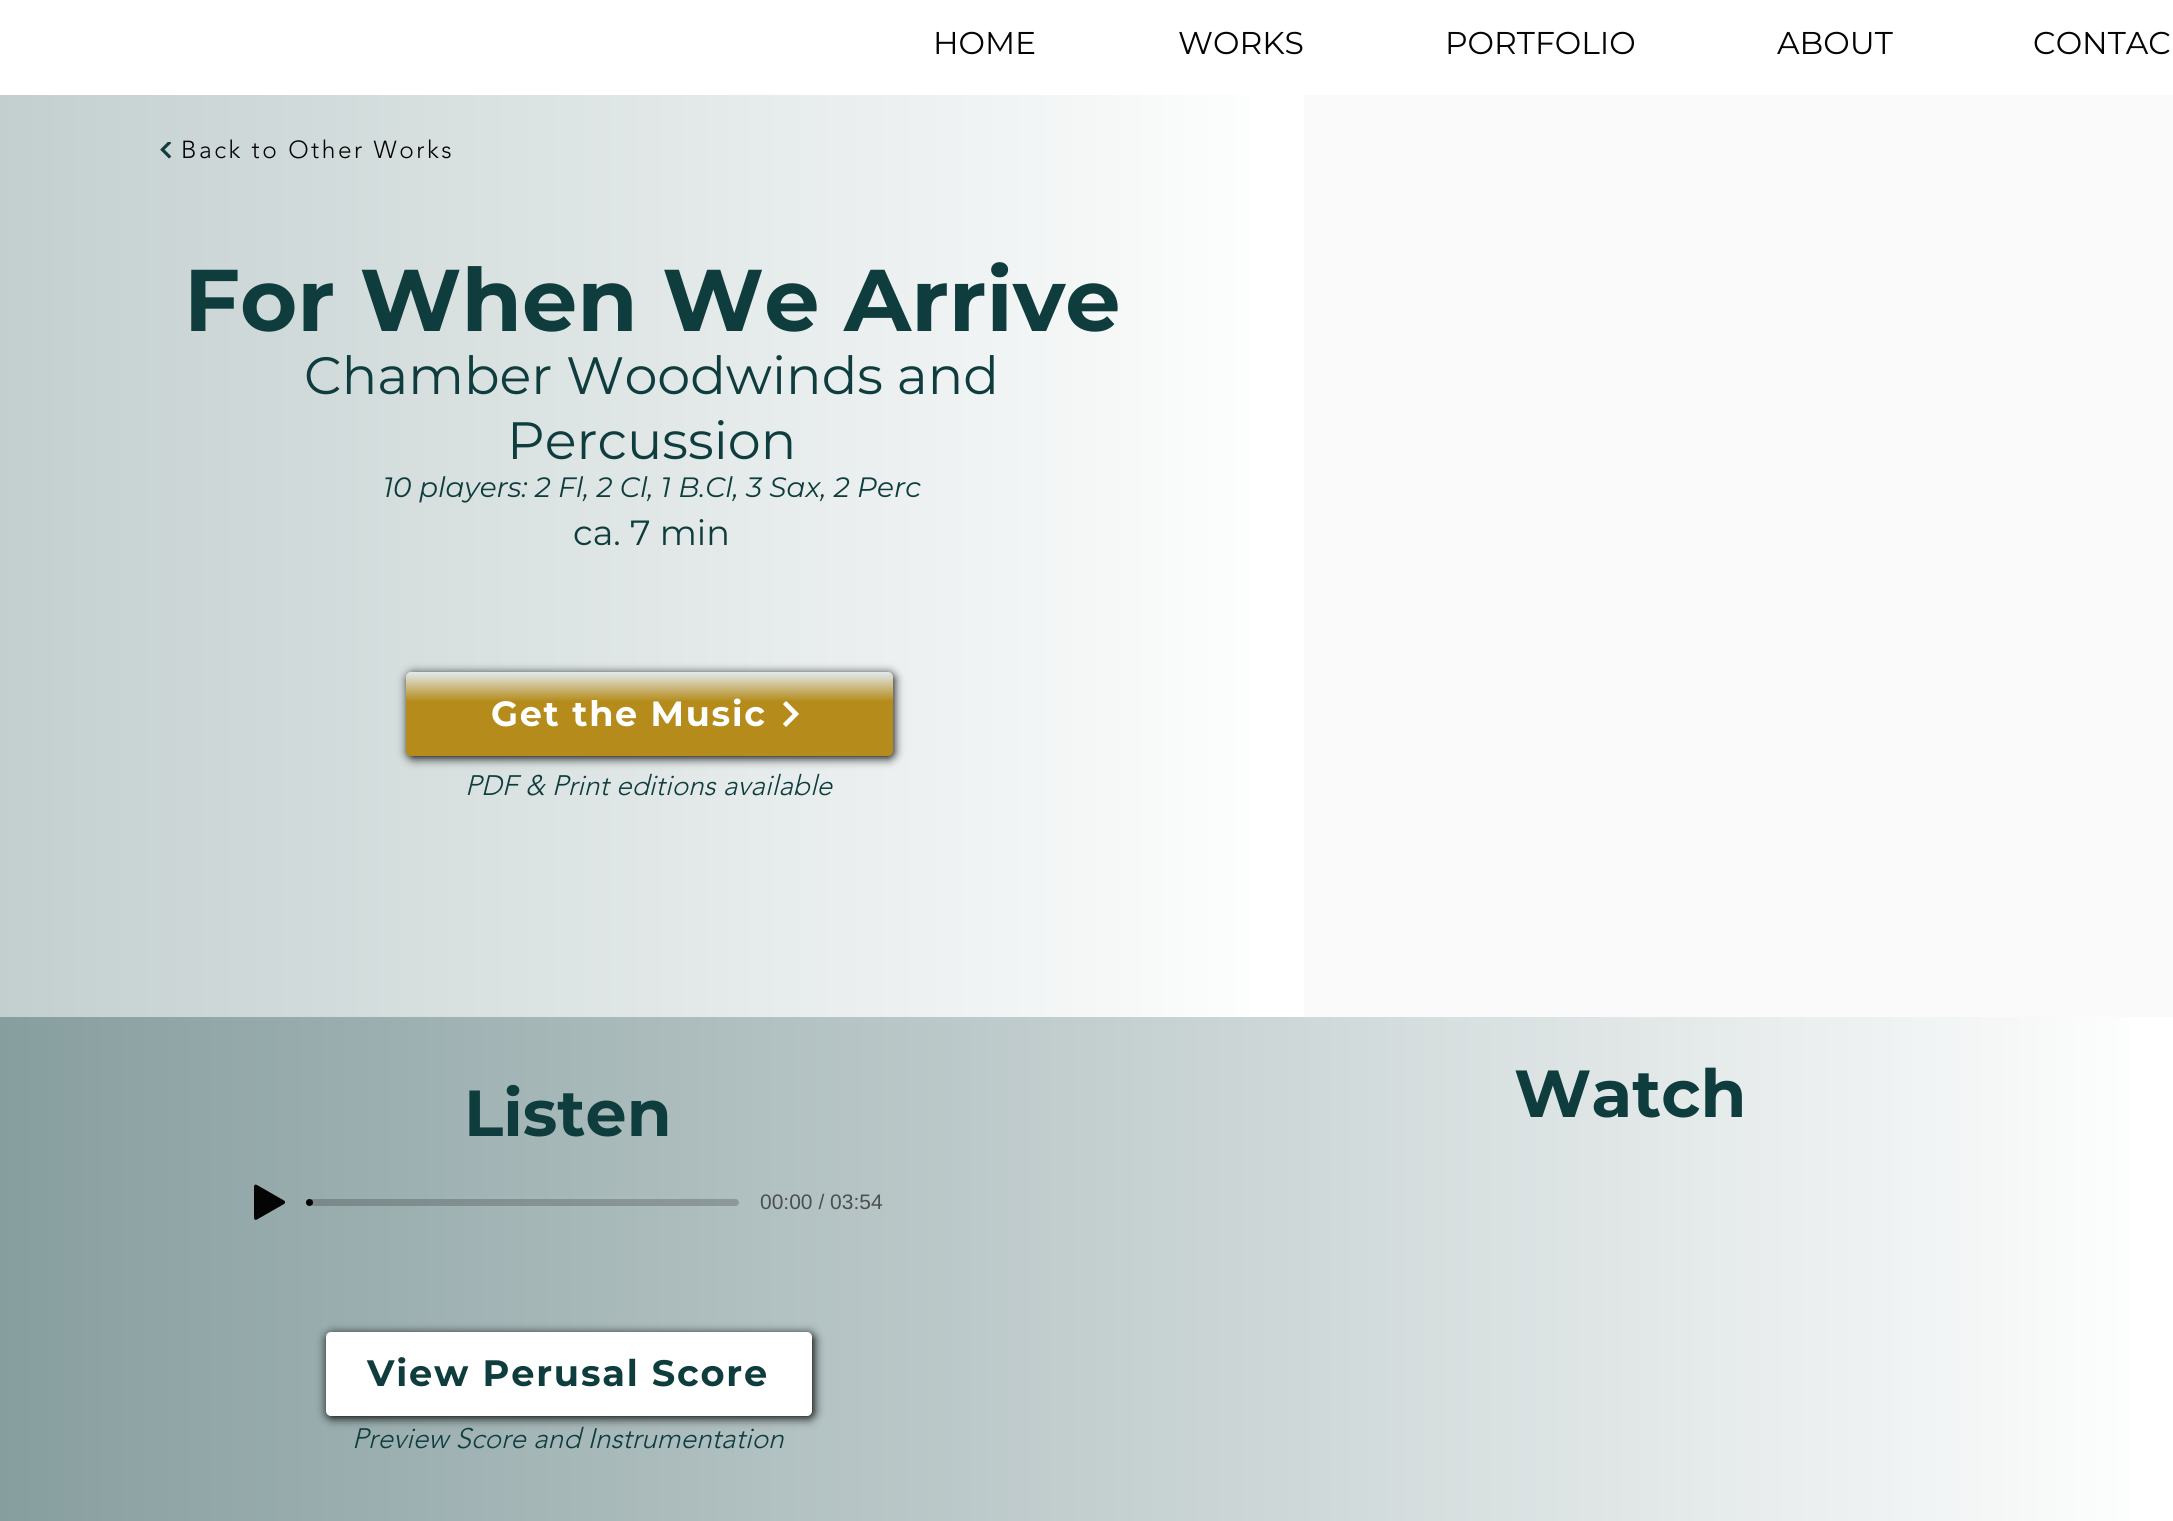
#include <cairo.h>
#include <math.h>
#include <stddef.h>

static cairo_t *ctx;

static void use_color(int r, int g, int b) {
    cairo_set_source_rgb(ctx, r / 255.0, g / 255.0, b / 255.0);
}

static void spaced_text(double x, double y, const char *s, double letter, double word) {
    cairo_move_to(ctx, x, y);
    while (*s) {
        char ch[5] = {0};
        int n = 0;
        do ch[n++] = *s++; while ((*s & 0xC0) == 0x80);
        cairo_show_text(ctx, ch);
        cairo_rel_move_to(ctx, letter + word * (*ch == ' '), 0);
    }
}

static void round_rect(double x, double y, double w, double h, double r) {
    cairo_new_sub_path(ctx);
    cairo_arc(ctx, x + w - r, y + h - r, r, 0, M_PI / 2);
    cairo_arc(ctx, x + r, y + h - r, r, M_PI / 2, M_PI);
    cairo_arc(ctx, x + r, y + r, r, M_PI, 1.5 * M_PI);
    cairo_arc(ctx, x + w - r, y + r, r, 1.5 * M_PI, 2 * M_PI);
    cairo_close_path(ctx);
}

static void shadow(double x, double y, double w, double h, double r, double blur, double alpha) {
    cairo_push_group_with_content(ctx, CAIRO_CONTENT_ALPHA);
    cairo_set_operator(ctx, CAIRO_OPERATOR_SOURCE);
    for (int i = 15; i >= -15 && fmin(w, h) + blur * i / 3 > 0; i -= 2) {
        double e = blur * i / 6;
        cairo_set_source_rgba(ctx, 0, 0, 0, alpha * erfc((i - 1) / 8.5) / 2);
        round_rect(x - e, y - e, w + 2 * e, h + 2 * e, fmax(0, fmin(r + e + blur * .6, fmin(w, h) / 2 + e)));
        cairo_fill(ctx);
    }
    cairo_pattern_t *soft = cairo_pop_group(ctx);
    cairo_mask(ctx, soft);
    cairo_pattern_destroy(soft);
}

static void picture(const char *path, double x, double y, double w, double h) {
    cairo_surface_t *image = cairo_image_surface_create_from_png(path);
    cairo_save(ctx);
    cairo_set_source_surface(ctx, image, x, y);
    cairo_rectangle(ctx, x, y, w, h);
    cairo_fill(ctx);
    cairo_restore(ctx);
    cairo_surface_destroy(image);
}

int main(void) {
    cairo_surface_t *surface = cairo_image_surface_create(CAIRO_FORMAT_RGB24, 2173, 1521);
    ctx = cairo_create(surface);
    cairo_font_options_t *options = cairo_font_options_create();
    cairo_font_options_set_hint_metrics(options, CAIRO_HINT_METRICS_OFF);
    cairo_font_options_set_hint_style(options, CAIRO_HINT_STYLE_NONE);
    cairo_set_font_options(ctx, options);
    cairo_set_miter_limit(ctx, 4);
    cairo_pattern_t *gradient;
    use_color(255, 255, 255);
    cairo_paint(ctx);
    cairo_select_font_face(ctx, "Montserrat", CAIRO_FONT_SLANT_NORMAL, CAIRO_FONT_WEIGHT_NORMAL);
    cairo_set_font_size(ctx, 31.5);
    use_color(4, 4, 4);
    cairo_move_to(ctx, 933, 54);
    cairo_show_text(ctx, "HOME");
    cairo_move_to(ctx, 1178, 54);
    cairo_show_text(ctx, "WORKS");
    cairo_move_to(ctx, 1445, 54);
    cairo_show_text(ctx, "PORTFOLIO");
    cairo_move_to(ctx, 1777, 54);
    cairo_show_text(ctx, "ABOUT");
    cairo_move_to(ctx, 2033, 54);
    cairo_show_text(ctx, "CONTAC");
    gradient = cairo_pattern_create_linear(0, 556, 1304, 556);
    cairo_pattern_add_color_stop_rgba(gradient, 0, 0.765, 0.812, 0.812, 1);
    cairo_pattern_add_color_stop_rgba(gradient, 1, 1, 1, 1, 1);
    cairo_set_source(ctx, gradient);
    cairo_pattern_destroy(gradient);
    cairo_rectangle(ctx, 0, 95, 1250, 922);
    cairo_fill(ctx);
    picture("img1.png", 160, 142, 12, 17);
    cairo_select_font_face(ctx, "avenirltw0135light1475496 Light", CAIRO_FONT_SLANT_NORMAL, CAIRO_FONT_WEIGHT_NORMAL);
    cairo_set_font_size(ctx, 24.5);
    use_color(4, 4, 4);
    spaced_text(181, 158, "Back to Other Works", 2.5, 0);
    cairo_select_font_face(ctx, "Montserrat", CAIRO_FONT_SLANT_NORMAL, CAIRO_FONT_WEIGHT_BOLD);
    cairo_set_font_size(ctx, 87.5);
    use_color(15, 61, 62);
    cairo_move_to(ctx, 184, 331);
    cairo_show_text(ctx, "For When We Arrive");
    cairo_select_font_face(ctx, "Montserrat", CAIRO_FONT_SLANT_NORMAL, CAIRO_FONT_WEIGHT_NORMAL);
    cairo_set_font_size(ctx, 52.5);
    cairo_move_to(ctx, 304, 394);
    cairo_show_text(ctx, "Chamber Woodwinds and");
    cairo_move_to(ctx, 507, 459);
    cairo_show_text(ctx, "Percussion");
    cairo_select_font_face(ctx, "Montserrat", CAIRO_FONT_SLANT_ITALIC, CAIRO_FONT_WEIGHT_NORMAL);
    cairo_set_font_size(ctx, 28);
    cairo_move_to(ctx, 383, 497);
    cairo_show_text(ctx, "10 players: 2 Fl, 2 Cl, 1 B.Cl, 3 Sax, 2 Perc");
    cairo_select_font_face(ctx, "Montserrat", CAIRO_FONT_SLANT_NORMAL, CAIRO_FONT_WEIGHT_NORMAL);
    cairo_set_font_size(ctx, 35);
    cairo_move_to(ctx, 573, 545);
    cairo_show_text(ctx, "ca. 7 min");
    use_color(0, 0, 0);
    shadow(408, 674, 486, 84, 5, 5, 1);
    gradient = cairo_pattern_create_linear(649, 672, 649, 756);
    cairo_pattern_add_color_stop_rgba(gradient, 0, 0.89, 0.918, 0.933, 1);
    cairo_pattern_add_color_stop_rgba(gradient, 0.35, 0.71, 0.549, 0.106, 1);
    cairo_set_source(ctx, gradient);
    cairo_pattern_destroy(gradient);
    round_rect(406, 672, 487, 84, 5);
    cairo_fill(ctx);
    cairo_select_font_face(ctx, "Montserrat", CAIRO_FONT_SLANT_NORMAL, CAIRO_FONT_WEIGHT_BOLD);
    use_color(255, 255, 255);
    spaced_text(491, 726, "Get the Music", 1.75, 0);
    picture("img2.png", 783, 701, 16, 26);
    cairo_select_font_face(ctx, "avenirltw0135light1475496 Light", CAIRO_FONT_SLANT_ITALIC, CAIRO_FONT_WEIGHT_NORMAL);
    cairo_set_font_size(ctx, 28);
    use_color(15, 61, 62);
    cairo_move_to(ctx, 465, 795);
    cairo_show_text(ctx, "PDF & Print editions available");
    use_color(250, 250, 250);
    cairo_rectangle(ctx, 1304, 95, 869, 922);
    cairo_fill(ctx);
    gradient = cairo_pattern_create_linear(0, 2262, 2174, 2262);
    cairo_pattern_add_color_stop_rgba(gradient, 0, 0.529, 0.62, 0.624, 1);
    cairo_pattern_add_color_stop_rgba(gradient, 1, 1, 1, 1, 1);
    cairo_set_source(ctx, gradient);
    cairo_pattern_destroy(gradient);
    cairo_rectangle(ctx, 0, 1017, 2129, 504);
    cairo_fill(ctx);
    cairo_select_font_face(ctx, "Montserrat", CAIRO_FONT_SLANT_NORMAL, CAIRO_FONT_WEIGHT_BOLD);
    cairo_set_font_size(ctx, 65);
    use_color(15, 61, 62);
    cairo_move_to(ctx, 464, 1136);
    cairo_show_text(ctx, "Listen");
    use_color(4, 4, 4);
    cairo_new_path(ctx);
    cairo_move_to(ctx, 284, 1200.5);
    cairo_curve_to(ctx, 285.5, 1201.5, 285.5, 1203, 284, 1204);
    cairo_line_to(ctx, 257, 1219.5);
    cairo_curve_to(ctx, 255, 1220.5, 254, 1219.5, 254, 1217.5);
    cairo_line_to(ctx, 254, 1187);
    cairo_curve_to(ctx, 254, 1185, 255, 1184, 257, 1185);
    cairo_close_path(ctx);
    cairo_fill(ctx);
    cairo_set_source_rgba(ctx, 0.016, 0.016, 0.016, 0.2);
    round_rect(310, 1199, 429, 7, 3.5);
    cairo_fill(ctx);
    use_color(4, 4, 4);
    cairo_arc(ctx, 309.5, 1202.5, 3.5, 0, 2 * M_PI);
    cairo_fill(ctx);
    cairo_select_font_face(ctx, "Liberation Sans", CAIRO_FONT_SLANT_NORMAL, CAIRO_FONT_WEIGHT_NORMAL);
    cairo_set_font_size(ctx, 21);
    use_color(75, 80, 81);
    cairo_move_to(ctx, 760, 1209);
    cairo_show_text(ctx, "00:00 / 03:54");
    use_color(0, 0, 0);
    shadow(327, 1334, 487, 84, 5, 5, 1);
    use_color(255, 255, 255);
    round_rect(326, 1332, 486, 84, 5);
    cairo_fill(ctx);
    cairo_select_font_face(ctx, "Montserrat", CAIRO_FONT_SLANT_NORMAL, CAIRO_FONT_WEIGHT_BOLD);
    cairo_set_font_size(ctx, 36.75);
    use_color(15, 61, 62);
    spaced_text(367, 1386, "View Perusal Score", 1.8, 0);
    cairo_select_font_face(ctx, "avenirltw0135light1475496 Light", CAIRO_FONT_SLANT_ITALIC, CAIRO_FONT_WEIGHT_NORMAL);
    cairo_set_font_size(ctx, 28);
    cairo_move_to(ctx, 352, 1448);
    cairo_show_text(ctx, "Preview Score and Instrumentation");
    cairo_select_font_face(ctx, "Montserrat", CAIRO_FONT_SLANT_NORMAL, CAIRO_FONT_WEIGHT_BOLD);
    cairo_set_font_size(ctx, 66.5);
    cairo_move_to(ctx, 1514, 1117);
    cairo_show_text(ctx, "Watch");
    cairo_surface_write_to_png(surface, "result.png");
    cairo_font_options_destroy(options);
    cairo_destroy(ctx);
    cairo_surface_destroy(surface);
    return 0;
}
